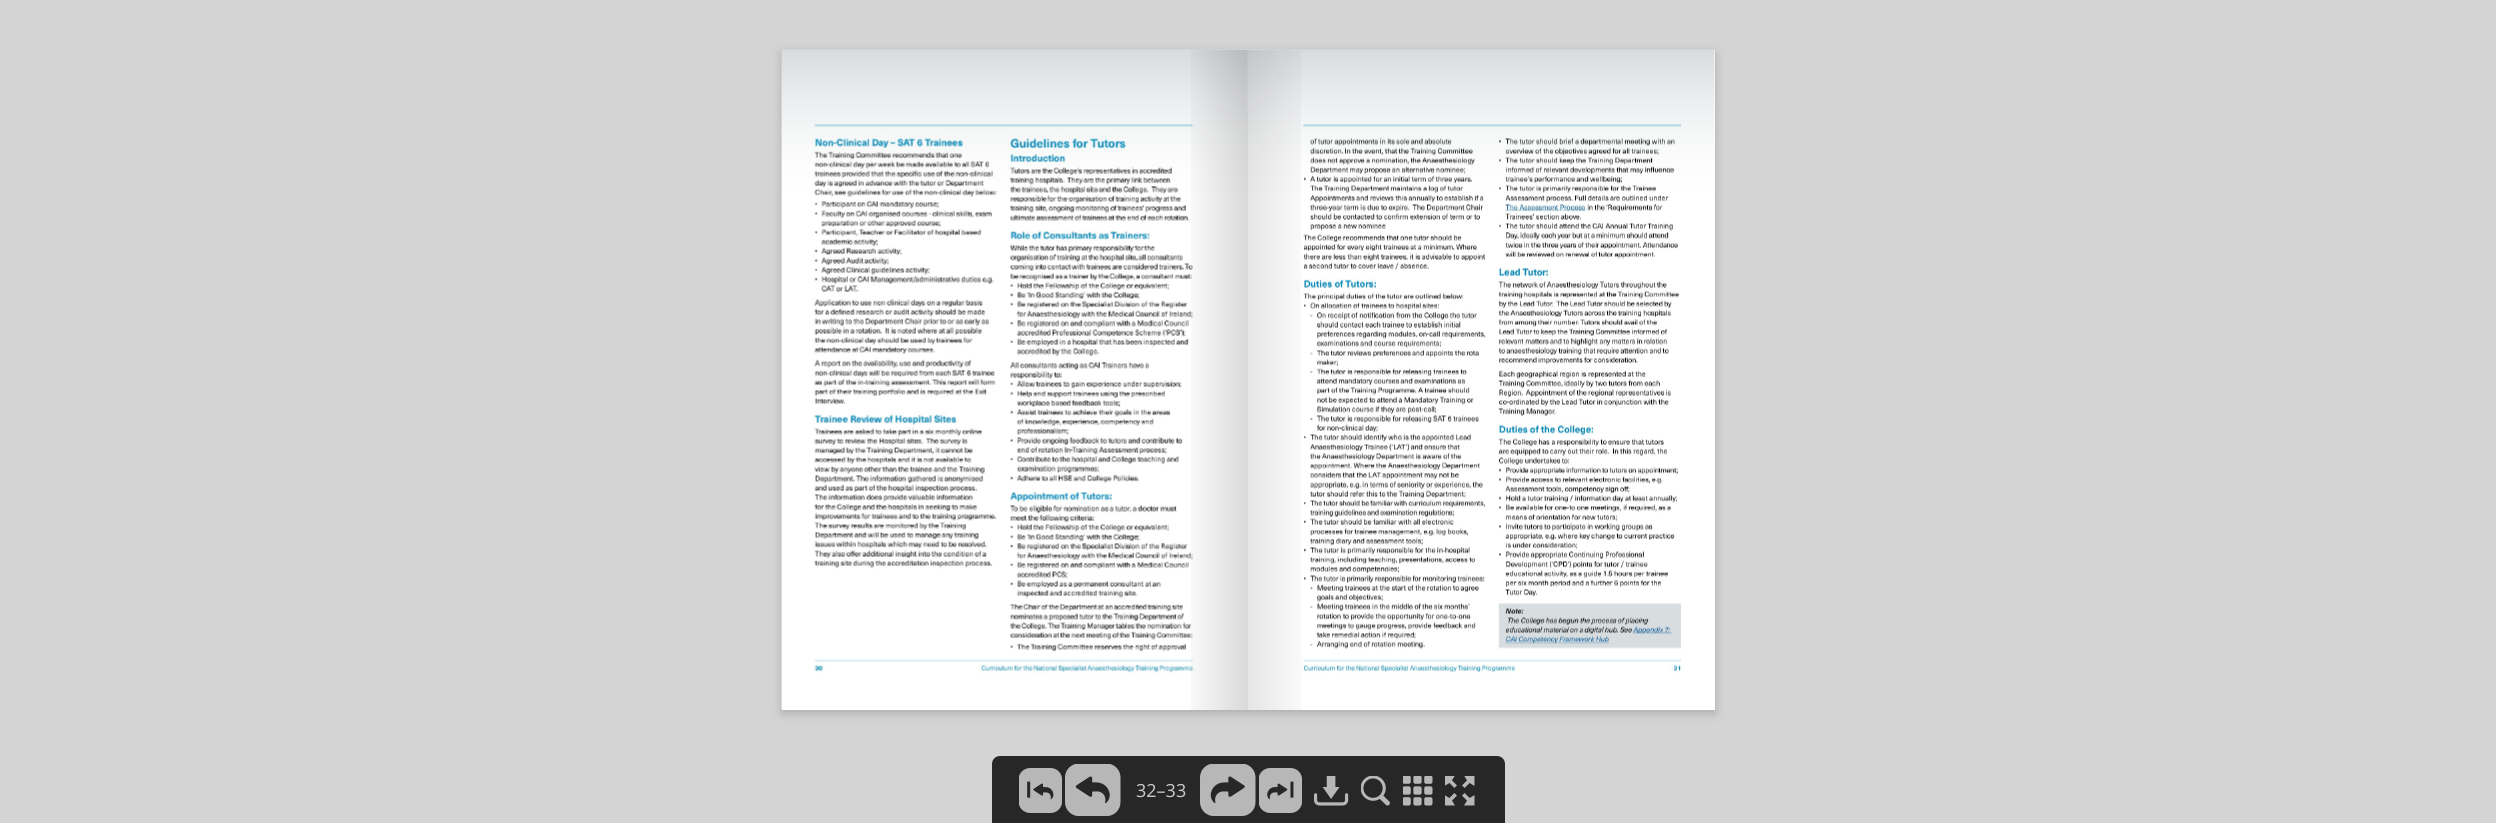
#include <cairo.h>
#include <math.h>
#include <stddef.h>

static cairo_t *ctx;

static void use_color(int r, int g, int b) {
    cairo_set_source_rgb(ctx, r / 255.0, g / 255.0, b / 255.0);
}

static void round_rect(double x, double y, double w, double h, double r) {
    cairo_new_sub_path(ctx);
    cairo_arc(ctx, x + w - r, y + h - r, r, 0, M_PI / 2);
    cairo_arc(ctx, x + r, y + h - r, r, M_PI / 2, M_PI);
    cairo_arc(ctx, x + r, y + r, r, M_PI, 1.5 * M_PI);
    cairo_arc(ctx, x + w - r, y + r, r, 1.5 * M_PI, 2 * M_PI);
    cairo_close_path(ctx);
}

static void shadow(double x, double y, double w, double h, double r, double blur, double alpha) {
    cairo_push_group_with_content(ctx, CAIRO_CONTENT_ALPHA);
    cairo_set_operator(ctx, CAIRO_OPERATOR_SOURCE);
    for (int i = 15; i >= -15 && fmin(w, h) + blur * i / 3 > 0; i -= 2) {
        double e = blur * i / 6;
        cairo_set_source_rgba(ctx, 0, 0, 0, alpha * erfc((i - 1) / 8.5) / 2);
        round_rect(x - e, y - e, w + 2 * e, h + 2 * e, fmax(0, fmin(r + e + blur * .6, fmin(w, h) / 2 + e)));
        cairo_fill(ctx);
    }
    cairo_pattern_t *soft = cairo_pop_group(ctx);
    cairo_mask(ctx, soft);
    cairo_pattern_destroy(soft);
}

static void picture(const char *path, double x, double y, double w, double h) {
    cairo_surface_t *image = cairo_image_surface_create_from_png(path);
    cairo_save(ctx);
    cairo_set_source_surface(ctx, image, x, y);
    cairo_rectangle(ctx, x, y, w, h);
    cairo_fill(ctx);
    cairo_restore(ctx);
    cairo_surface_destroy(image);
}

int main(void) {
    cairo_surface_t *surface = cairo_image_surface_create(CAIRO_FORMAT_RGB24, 2496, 823);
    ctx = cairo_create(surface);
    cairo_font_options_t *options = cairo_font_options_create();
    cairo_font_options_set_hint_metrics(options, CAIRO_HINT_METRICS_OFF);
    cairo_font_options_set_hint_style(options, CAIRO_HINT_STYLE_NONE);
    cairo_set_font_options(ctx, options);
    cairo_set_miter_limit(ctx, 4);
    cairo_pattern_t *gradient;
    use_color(212, 212, 212);
    cairo_paint(ctx);
    use_color(170, 170, 170);
    shadow(782, 53, 933, 660, 0, 5, 1);
    use_color(255, 255, 255);
    cairo_rectangle(ctx, 782, 50, 466, 660);
    cairo_fill(ctx);
    picture("img1.png", 781, 49, 468, 661);
    gradient = cairo_pattern_create_linear(1181, 379, 1248, 379);
    cairo_pattern_add_color_stop_rgba(gradient, 0, 0, 0, 0, 0);
    cairo_pattern_add_color_stop_rgba(gradient, 1, 0, 0, 0, 0.15);
    cairo_set_source(ctx, gradient);
    cairo_pattern_destroy(gradient);
    cairo_rectangle(ctx, 1191, 50, 57, 660);
    cairo_fill(ctx);
    use_color(255, 255, 255);
    cairo_rectangle(ctx, 1248, 50, 467, 660);
    cairo_fill(ctx);
    picture("img2.png", 1248, 49, 467, 624);
    gradient = cairo_pattern_create_linear(1248, 379, 1315, 379);
    cairo_pattern_add_color_stop_rgba(gradient, 0, 0, 0, 0, 0.1);
    cairo_pattern_add_color_stop_rgba(gradient, 1, 0, 0, 0, 0);
    cairo_set_source(ctx, gradient);
    cairo_pattern_destroy(gradient);
    cairo_rectangle(ctx, 1248, 50, 53, 660);
    cairo_fill(ctx);
    use_color(39, 39, 39);
    cairo_new_path(ctx);
    cairo_move_to(ctx, 1000, 756);
    cairo_line_to(ctx, 1497, 756);
    cairo_curve_to(ctx, 1501.5, 756, 1505, 759.5, 1505, 764);
    cairo_line_to(ctx, 1505, 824);
    cairo_line_to(ctx, 992, 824);
    cairo_line_to(ctx, 992, 764);
    cairo_curve_to(ctx, 992, 759.5, 995.5, 756, 1000, 756);
    cairo_close_path(ctx);
    cairo_fill(ctx);
    picture("img3.png", 1019, 768, 43, 45);
    picture("img4.png", 1065, 764, 56, 52);
    cairo_select_font_face(ctx, "Open Sans", CAIRO_FONT_SLANT_NORMAL, CAIRO_FONT_WEIGHT_NORMAL);
    cairo_set_font_size(ctx, 18);
    use_color(204, 204, 204);
    cairo_move_to(ctx, 1136, 797);
    cairo_show_text(ctx, "32–33");
    picture("img5.png", 1200, 764, 56, 52);
    picture("img6.png", 1259, 768, 43, 45);
    picture("img7.png", 1314, 776, 35, 30);
    picture("img8.png", 1361, 776, 29, 30);
    picture("img9.png", 1403, 776, 30, 30);
    picture("img10.png", 1445, 776, 30, 30);
    cairo_surface_write_to_png(surface, "result.png");
    cairo_font_options_destroy(options);
    cairo_destroy(ctx);
    cairo_surface_destroy(surface);
    return 0;
}
